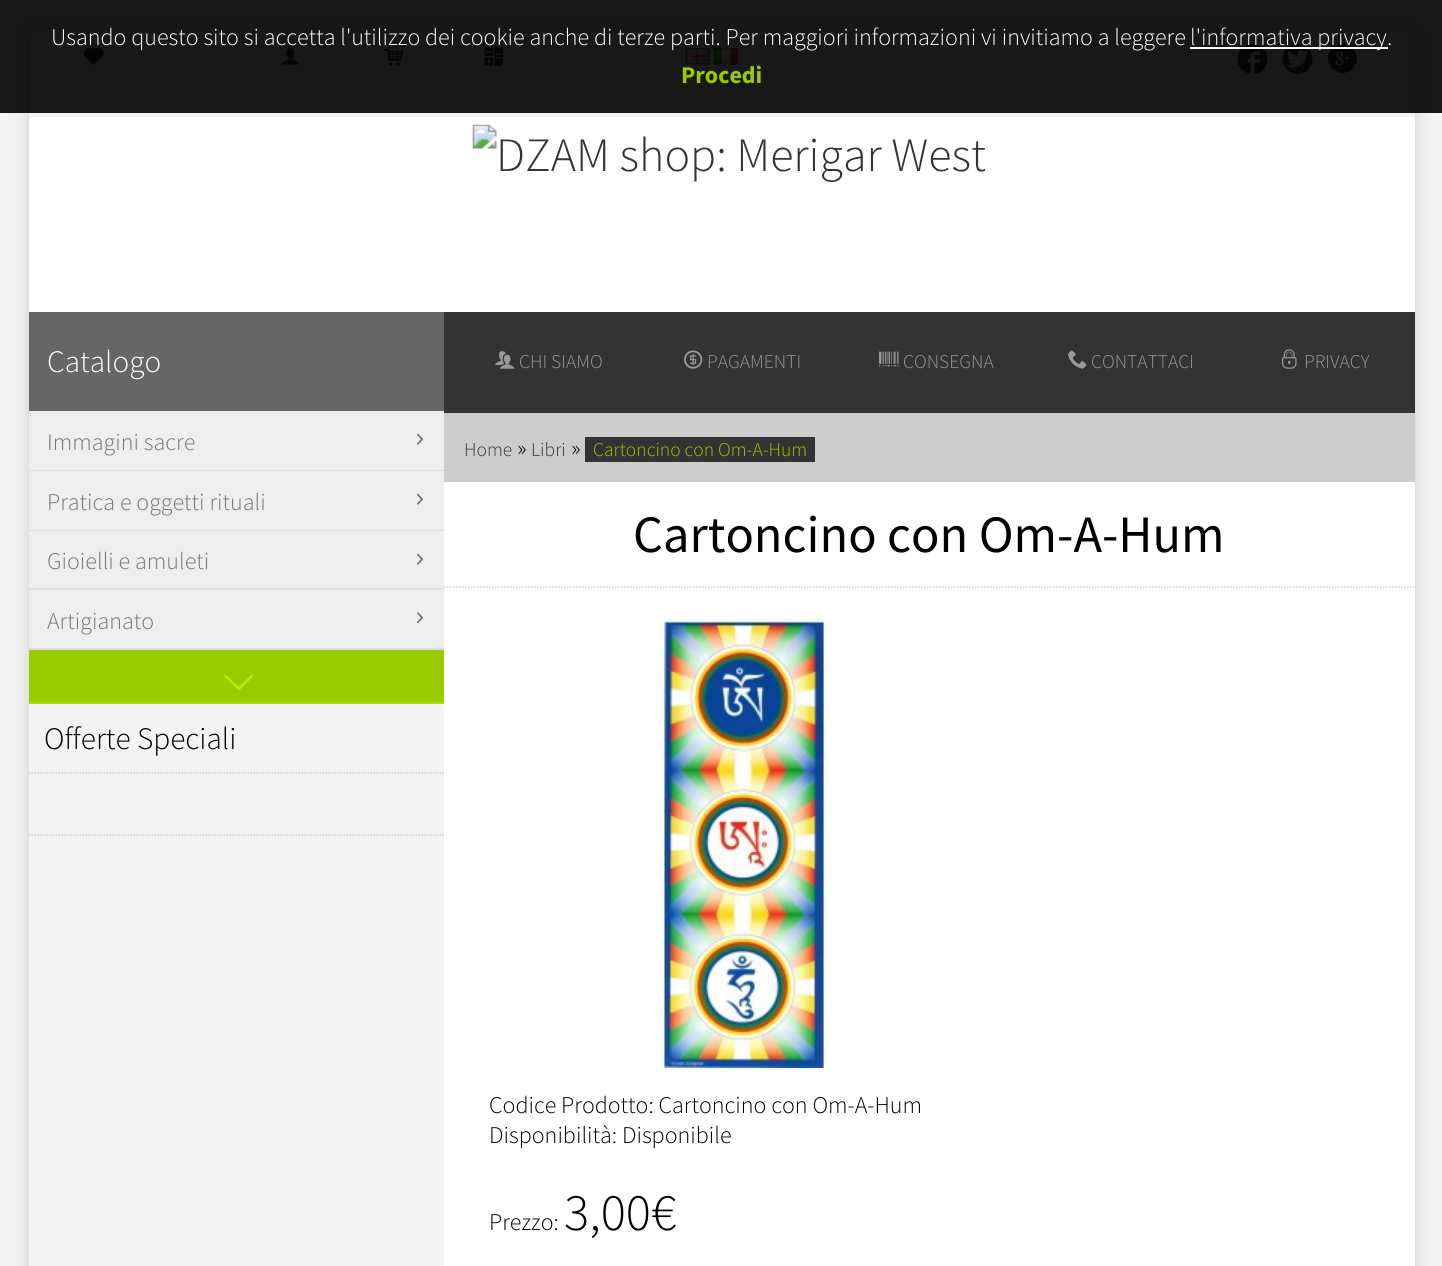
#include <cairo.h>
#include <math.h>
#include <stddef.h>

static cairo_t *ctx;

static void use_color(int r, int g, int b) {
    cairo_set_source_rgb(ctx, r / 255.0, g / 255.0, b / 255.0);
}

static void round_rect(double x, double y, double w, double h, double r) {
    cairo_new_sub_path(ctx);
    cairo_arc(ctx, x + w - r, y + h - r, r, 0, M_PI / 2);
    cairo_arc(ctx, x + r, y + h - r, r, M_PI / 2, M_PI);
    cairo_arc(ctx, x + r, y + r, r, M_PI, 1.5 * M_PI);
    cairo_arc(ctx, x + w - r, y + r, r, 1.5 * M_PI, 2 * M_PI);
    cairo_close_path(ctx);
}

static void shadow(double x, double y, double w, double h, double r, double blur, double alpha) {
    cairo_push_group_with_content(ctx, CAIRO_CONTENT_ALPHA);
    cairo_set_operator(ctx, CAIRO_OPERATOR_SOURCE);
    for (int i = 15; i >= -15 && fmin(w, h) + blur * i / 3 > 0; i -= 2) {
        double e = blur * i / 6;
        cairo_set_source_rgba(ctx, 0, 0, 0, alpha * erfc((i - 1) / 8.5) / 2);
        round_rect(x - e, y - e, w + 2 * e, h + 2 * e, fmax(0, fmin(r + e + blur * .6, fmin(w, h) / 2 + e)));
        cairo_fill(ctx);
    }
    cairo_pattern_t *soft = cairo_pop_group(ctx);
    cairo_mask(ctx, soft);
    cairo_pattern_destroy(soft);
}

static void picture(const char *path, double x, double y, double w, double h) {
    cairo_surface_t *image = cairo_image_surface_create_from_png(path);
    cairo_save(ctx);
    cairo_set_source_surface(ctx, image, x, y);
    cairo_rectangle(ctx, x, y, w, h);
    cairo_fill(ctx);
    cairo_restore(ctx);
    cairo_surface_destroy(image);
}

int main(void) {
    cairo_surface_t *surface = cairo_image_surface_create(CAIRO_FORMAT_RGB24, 1442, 1266);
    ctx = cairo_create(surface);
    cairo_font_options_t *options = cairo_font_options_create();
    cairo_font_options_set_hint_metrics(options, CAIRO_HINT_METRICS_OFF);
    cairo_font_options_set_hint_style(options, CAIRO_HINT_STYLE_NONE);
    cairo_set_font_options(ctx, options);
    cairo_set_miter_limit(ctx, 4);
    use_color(243, 243, 243);
    cairo_paint(ctx);
    cairo_save(ctx);
    cairo_set_fill_rule(ctx, CAIRO_FILL_RULE_EVEN_ODD);
    cairo_new_path(ctx);
    cairo_move_to(ctx, 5, 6);
    cairo_line_to(ctx, 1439, 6);
    cairo_line_to(ctx, 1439, 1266);
    cairo_line_to(ctx, 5, 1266);
    cairo_close_path(ctx);
    cairo_move_to(ctx, 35, 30);
    cairo_line_to(ctx, 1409, 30);
    cairo_curve_to(ctx, 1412.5, 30, 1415, 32.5, 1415, 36);
    cairo_line_to(ctx, 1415, 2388);
    cairo_line_to(ctx, 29, 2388);
    cairo_line_to(ctx, 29, 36);
    cairo_curve_to(ctx, 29, 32.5, 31.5, 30, 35, 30);
    cairo_close_path(ctx);
    cairo_clip(ctx);
    use_color(204, 204, 204);
    shadow(29, 30, 1386, 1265, 6, 7.5, 1);
    cairo_restore(ctx);
    picture("img1.png", 84, 47, 20, 18);
    picture("img2.png", 281, 48, 18, 17);
    picture("img3.png", 384, 48, 20, 18);
    picture("img4.png", 484, 47, 19, 19);
    picture("img5.png", 685, 48, 25, 17);
    picture("img6.png", 714, 48, 24, 17);
    picture("img7.png", 1237, 43, 31, 31);
    picture("img8.png", 1282, 43, 31, 31);
    picture("img9.png", 1328, 44, 29, 29);
    cairo_set_source_rgba(ctx, 0, 0, 0, 0.9);
    cairo_rectangle(ctx, 0, 0, 1442, 113);
    cairo_fill(ctx);
    cairo_select_font_face(ctx, "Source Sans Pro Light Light", CAIRO_FONT_SLANT_NORMAL, CAIRO_FONT_WEIGHT_NORMAL);
    cairo_set_font_size(ctx, 24);
    use_color(255, 255, 255);
    cairo_move_to(ctx, 51, 45);
    cairo_show_text(ctx, "Usando questo sito si accetta l'utilizzo dei cookie anche di terze parti. Per maggiori informazioni vi invitiamo a leggere");
    use_color(248, 248, 255);
    cairo_rectangle(ctx, 1190, 47, 198, 2);
    cairo_fill(ctx);
    cairo_move_to(ctx, 1190, 45);
    cairo_show_text(ctx, "l'informativa privacy");
    use_color(255, 255, 255);
    cairo_move_to(ctx, 1387, 45);
    cairo_show_text(ctx, ".");
    cairo_select_font_face(ctx, "Source Sans Pro", CAIRO_FONT_SLANT_NORMAL, CAIRO_FONT_WEIGHT_BOLD);
    use_color(153, 204, 0);
    cairo_move_to(ctx, 681, 83);
    cairo_show_text(ctx, "Procedi");
    use_color(255, 255, 255);
    cairo_new_path(ctx);
    cairo_move_to(ctx, 35, 117);
    cairo_line_to(ctx, 1409, 117);
    cairo_curve_to(ctx, 1412.5, 117, 1415, 119.5, 1415, 123);
    cairo_line_to(ctx, 1415, 312);
    cairo_line_to(ctx, 29, 312);
    cairo_line_to(ctx, 29, 123);
    cairo_curve_to(ctx, 29, 119.5, 31.5, 117, 35, 117);
    cairo_close_path(ctx);
    cairo_fill(ctx);
    picture("img10.png", 472, 124, 514, 58);
    use_color(102, 102, 102);
    cairo_rectangle(ctx, 29, 312, 415, 99);
    cairo_fill(ctx);
    cairo_select_font_face(ctx, "Source Sans Pro Light Light", CAIRO_FONT_SLANT_NORMAL, CAIRO_FONT_WEIGHT_NORMAL);
    cairo_set_font_size(ctx, 31.25);
    use_color(255, 255, 255);
    cairo_move_to(ctx, 47, 372);
    cairo_show_text(ctx, "Catalogo");
    use_color(238, 238, 238);
    cairo_rectangle(ctx, 29, 411, 415, 59);
    cairo_fill(ctx);
    use_color(221, 221, 221);
    cairo_rectangle(ctx, 29, 470, 415, 1);
    cairo_fill(ctx);
    cairo_set_font_size(ctx, 24);
    use_color(117, 117, 117);
    cairo_move_to(ctx, 47, 450);
    cairo_show_text(ctx, "Immagini sacre");
    picture("img11.png", 417, 433, 6, 12);
    use_color(238, 238, 238);
    cairo_rectangle(ctx, 29, 471, 415, 59);
    cairo_fill(ctx);
    use_color(221, 221, 221);
    cairo_rectangle(ctx, 29, 530, 415, 1);
    cairo_fill(ctx);
    use_color(117, 117, 117);
    cairo_move_to(ctx, 47, 510);
    cairo_show_text(ctx, "Pratica e oggetti rituali");
    picture("img11.png", 417, 493, 6, 12);
    use_color(238, 238, 238);
    cairo_rectangle(ctx, 29, 531, 415, 57);
    cairo_fill(ctx);
    use_color(221, 221, 221);
    cairo_rectangle(ctx, 29, 588, 415, 2);
    cairo_fill(ctx);
    use_color(117, 117, 117);
    cairo_move_to(ctx, 47, 569);
    cairo_show_text(ctx, "Gioielli e amuleti");
    picture("img11.png", 417, 553, 6, 12);
    use_color(238, 238, 238);
    cairo_rectangle(ctx, 29, 590, 415, 58);
    cairo_fill(ctx);
    use_color(221, 221, 221);
    cairo_rectangle(ctx, 29, 648, 415, 2);
    cairo_fill(ctx);
    use_color(117, 117, 117);
    cairo_move_to(ctx, 47, 629);
    cairo_show_text(ctx, "Artigianato");
    picture("img12.png", 417, 612, 6, 12);
    use_color(153, 204, 0);
    cairo_rectangle(ctx, 29, 650, 415, 52);
    cairo_fill(ctx);
    use_color(165, 226, 1);
    cairo_rectangle(ctx, 29, 702, 415, 2);
    cairo_fill(ctx);
    picture("img13.png", 224, 674, 30, 16);
    cairo_new_path(ctx);
    cairo_move_to(ctx, 28.5, 773);
    cairo_line_to(ctx, 478.5, 773);
    use_color(204, 204, 204);
    cairo_set_line_width(ctx, 1.5);
    cairo_set_dash(ctx, (double[]){1.5, 1.5}, 2, 0);
    cairo_stroke(ctx);
    cairo_set_font_size(ctx, 31.25);
    use_color(0, 0, 0);
    cairo_move_to(ctx, 44, 749);
    cairo_show_text(ctx, "Offerte Speciali");
    cairo_new_path(ctx);
    cairo_move_to(ctx, 28.5, 835);
    cairo_line_to(ctx, 478.5, 835);
    use_color(204, 204, 204);
    cairo_stroke(ctx);
    use_color(255, 255, 255);
    cairo_rectangle(ctx, 444, 482, 971, 784);
    cairo_fill(ctx);
    use_color(51, 51, 51);
    cairo_rectangle(ctx, 444, 312, 971, 101);
    cairo_fill(ctx);
    picture("img14.png", 495, 351, 20, 18);
    cairo_set_font_size(ctx, 19.5);
    use_color(153, 153, 153);
    cairo_move_to(ctx, 519, 368);
    cairo_show_text(ctx, "CHI SIAMO");
    picture("img15.png", 684, 350, 19, 19);
    cairo_move_to(ctx, 707, 368);
    cairo_show_text(ctx, "PAGAMENTI");
    picture("img16.png", 879, 351, 20, 16);
    cairo_move_to(ctx, 903, 368);
    cairo_show_text(ctx, "CONSEGNA");
    picture("img17.png", 1068, 350, 19, 19);
    cairo_move_to(ctx, 1091, 368);
    cairo_show_text(ctx, "CONTATTACI");
    picture("img18.png", 1281, 349, 16, 20);
    cairo_move_to(ctx, 1304, 368);
    cairo_show_text(ctx, "PRIVACY");
    use_color(204, 204, 204);
    cairo_rectangle(ctx, 444, 413, 971, 69);
    cairo_fill(ctx);
    use_color(51, 51, 51);
    cairo_move_to(ctx, 464, 456);
    cairo_show_text(ctx, "Home");
    cairo_set_font_size(ctx, 24);
    use_color(0, 0, 0);
    cairo_move_to(ctx, 517, 456);
    cairo_show_text(ctx, "»");
    cairo_set_font_size(ctx, 19.5);
    use_color(51, 51, 51);
    cairo_move_to(ctx, 531, 456);
    cairo_show_text(ctx, "Libri");
    cairo_set_font_size(ctx, 24);
    use_color(0, 0, 0);
    cairo_move_to(ctx, 571, 456);
    cairo_show_text(ctx, "»");
    use_color(51, 51, 51);
    cairo_rectangle(ctx, 585, 437, 230, 25);
    cairo_fill(ctx);
    cairo_set_font_size(ctx, 19.5);
    use_color(153, 204, 0);
    cairo_move_to(ctx, 593, 456);
    cairo_show_text(ctx, "Cartoncino con Om-A-Hum");
    cairo_select_font_face(ctx, "Source Sans Pro", CAIRO_FONT_SLANT_NORMAL, CAIRO_FONT_WEIGHT_NORMAL);
    cairo_set_font_size(ctx, 52.5);
    use_color(0, 0, 0);
    cairo_move_to(ctx, 633, 552);
    cairo_show_text(ctx, "Cartoncino con Om-A-Hum");
    cairo_new_path(ctx);
    cairo_move_to(ctx, 444, 587);
    cairo_line_to(ctx, 1414.5, 587);
    use_color(204, 204, 204);
    cairo_stroke(ctx);
    picture("img19.png", 662, 618, 170, 450);
    cairo_select_font_face(ctx, "Source Sans Pro Light Light", CAIRO_FONT_SLANT_NORMAL, CAIRO_FONT_WEIGHT_NORMAL);
    cairo_set_font_size(ctx, 24);
    use_color(0, 0, 0);
    cairo_move_to(ctx, 489, 1113);
    cairo_show_text(ctx, "Codice Prodotto: Cartoncino con Om-A-Hum");
    cairo_move_to(ctx, 489, 1143);
    cairo_show_text(ctx, "Disponibilità: Disponibile");
    cairo_move_to(ctx, 489, 1230);
    cairo_show_text(ctx, "Prezzo:");
    cairo_set_font_size(ctx, 52.5);
    cairo_move_to(ctx, 564, 1230);
    cairo_show_text(ctx, "3,00€");
    cairo_surface_write_to_png(surface, "result.png");
    cairo_font_options_destroy(options);
    cairo_destroy(ctx);
    cairo_surface_destroy(surface);
    return 0;
}
